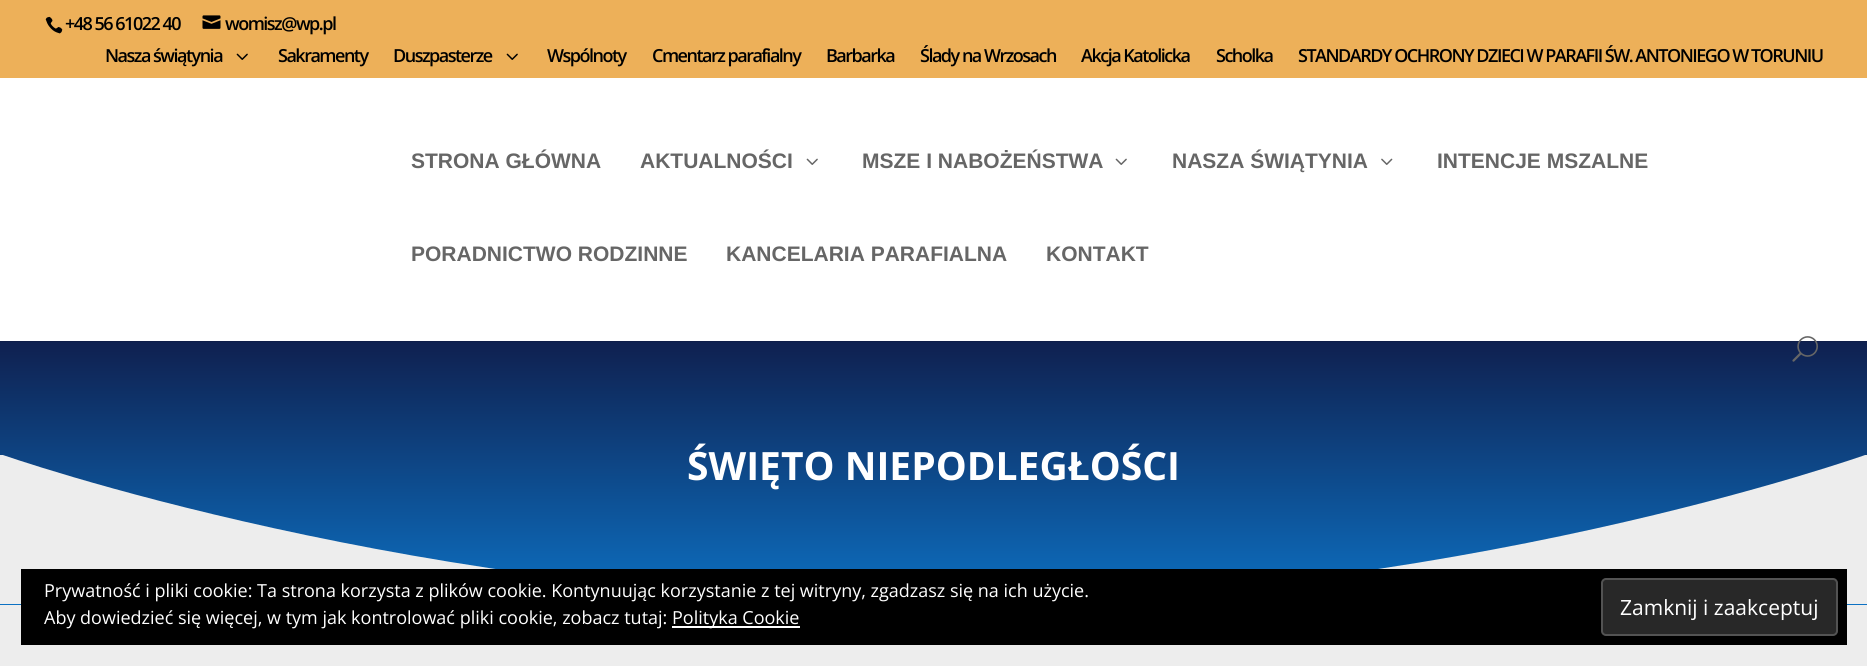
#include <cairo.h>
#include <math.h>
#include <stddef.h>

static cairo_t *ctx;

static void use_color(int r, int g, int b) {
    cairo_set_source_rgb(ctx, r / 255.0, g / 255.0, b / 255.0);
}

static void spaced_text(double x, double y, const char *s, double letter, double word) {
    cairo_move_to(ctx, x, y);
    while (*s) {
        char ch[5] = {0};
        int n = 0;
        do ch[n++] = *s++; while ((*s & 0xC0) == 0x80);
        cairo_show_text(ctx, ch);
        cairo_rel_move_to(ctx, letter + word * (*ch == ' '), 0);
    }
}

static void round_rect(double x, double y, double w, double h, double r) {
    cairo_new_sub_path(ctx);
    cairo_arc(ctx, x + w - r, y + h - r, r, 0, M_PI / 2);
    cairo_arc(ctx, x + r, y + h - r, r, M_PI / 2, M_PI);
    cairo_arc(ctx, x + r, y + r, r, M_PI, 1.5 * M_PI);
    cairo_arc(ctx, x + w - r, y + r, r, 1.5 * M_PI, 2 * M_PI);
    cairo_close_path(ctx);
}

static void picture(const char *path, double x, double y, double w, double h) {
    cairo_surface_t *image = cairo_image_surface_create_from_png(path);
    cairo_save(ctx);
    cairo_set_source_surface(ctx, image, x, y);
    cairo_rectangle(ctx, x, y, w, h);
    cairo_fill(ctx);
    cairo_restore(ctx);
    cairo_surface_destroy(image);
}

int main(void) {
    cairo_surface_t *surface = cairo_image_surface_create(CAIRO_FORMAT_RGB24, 1867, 666);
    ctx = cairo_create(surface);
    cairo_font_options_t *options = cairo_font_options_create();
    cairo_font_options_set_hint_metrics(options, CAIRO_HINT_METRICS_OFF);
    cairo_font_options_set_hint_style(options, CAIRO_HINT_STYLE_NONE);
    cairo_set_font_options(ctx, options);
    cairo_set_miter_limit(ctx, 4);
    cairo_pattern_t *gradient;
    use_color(255, 255, 255);
    cairo_paint(ctx);
    use_color(237, 176, 89);
    cairo_rectangle(ctx, 0, 0, 1867, 78);
    cairo_fill(ctx);
    picture("img1.png", 45, 16, 18, 18);
    cairo_select_font_face(ctx, "Open Sans SemiBold", CAIRO_FONT_SLANT_NORMAL, CAIRO_FONT_WEIGHT_NORMAL);
    cairo_set_font_size(ctx, 18);
    use_color(0, 0, 0);
    spaced_text(65, 30, "+48 56 61022 40", -1.5, 0);
    picture("img2.png", 202, 15, 19, 14);
    spaced_text(225, 30, "womisz@wp.pl", -1.5, 0);
    spaced_text(105, 62, "Nasza świątynia", -1.5, 0);
    picture("img3.png", 236, 53, 12, 7);
    spaced_text(278, 62, "Sakramenty", -1.5, 0);
    spaced_text(393, 62, "Duszpasterze", -1.5, 0);
    picture("img3.png", 506, 53, 12, 7);
    spaced_text(547, 62, "Wspólnoty", -1.5, 0);
    spaced_text(652, 62, "Cmentarz parafialny", -1.5, 0);
    spaced_text(826, 62, "Barbarka", -1.5, 0);
    spaced_text(920, 62, "Ślady na Wrzosach", -1.5, 0);
    spaced_text(1081, 62, "Akcja Katolicka", -1.5, 0);
    spaced_text(1216, 62, "Scholka", -1.5, 0);
    spaced_text(1298, 62, "STANDARDY OCHRONY DZIECI W PARAFII ŚW. ANTONIEGO W TORUNIU", -1.5, 0);
    gradient = cairo_pattern_create_linear(934, 340, 934, 605);
    cairo_pattern_add_color_stop_rgba(gradient, 0, 0.059, 0.125, 0.31, 1);
    cairo_pattern_add_color_stop_rgba(gradient, 1, 0.047, 0.443, 0.765, 1);
    cairo_set_source(ctx, gradient);
    cairo_pattern_destroy(gradient);
    cairo_rectangle(ctx, 0, 341, 1867, 264);
    cairo_fill(ctx);
    cairo_set_source_rgba(ctx, 0, 0, 0, 0.1);
    cairo_new_path(ctx);
    cairo_move_to(ctx, 0, 340);
    cairo_line_to(ctx, 0, 342);
    cairo_line_to(ctx, 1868, 342);
    cairo_line_to(ctx, 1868, 80);
    cairo_line_to(ctx, 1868, 340);
    cairo_close_path(ctx);
    cairo_fill(ctx);
    use_color(255, 255, 255);
    cairo_rectangle(ctx, 0, 340, 1867, 1);
    cairo_fill(ctx);
    cairo_select_font_face(ctx, "Liberation Sans", CAIRO_FONT_SLANT_NORMAL, CAIRO_FONT_WEIGHT_BOLD);
    cairo_set_font_size(ctx, 21);
    use_color(102, 102, 102);
    cairo_move_to(ctx, 411, 168);
    cairo_show_text(ctx, "STRONA GŁÓWNA");
    cairo_move_to(ctx, 640, 168);
    cairo_show_text(ctx, "AKTUALNOŚCI");
    picture("img4.png", 806, 158, 12, 7);
    cairo_move_to(ctx, 862, 168);
    cairo_show_text(ctx, "MSZE I NABOŻEŃSTWA");
    picture("img4.png", 1115, 158, 12, 7);
    cairo_move_to(ctx, 1172, 168);
    cairo_show_text(ctx, "NASZA ŚWIĄTYNIA");
    picture("img5.png", 1381, 158, 12, 7);
    cairo_move_to(ctx, 1437, 168);
    cairo_show_text(ctx, "INTENCJE MSZALNE");
    cairo_move_to(ctx, 411, 261);
    cairo_show_text(ctx, "PORADNICTWO RODZINNE");
    cairo_move_to(ctx, 726, 261);
    cairo_show_text(ctx, "KANCELARIA PARAFIALNA");
    cairo_move_to(ctx, 1046, 261);
    cairo_show_text(ctx, "KONTAKT");
    picture("img6.png", 1792, 336, 26, 26);
    cairo_save(ctx);
    cairo_rectangle(ctx, 0, 455, 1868, 150);
    cairo_clip(ctx);
    use_color(237, 237, 237);
    cairo_new_path(ctx);
    cairo_move_to(ctx, 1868, 604);
    cairo_line_to(ctx, 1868, 454);
    cairo_curve_to(ctx, 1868, 454, 1449, 604, 934, 603);
    cairo_curve_to(ctx, 418, 602, 0, 454, 0, 454);
    cairo_line_to(ctx, 0, 604);
    cairo_close_path(ctx);
    cairo_fill(ctx);
    cairo_restore(ctx);
    cairo_select_font_face(ctx, "Open Sans", CAIRO_FONT_SLANT_NORMAL, CAIRO_FONT_WEIGHT_BOLD);
    cairo_set_font_size(ctx, 39);
    use_color(255, 255, 255);
    cairo_move_to(ctx, 687, 480);
    cairo_show_text(ctx, "ŚWIĘTO NIEPODLEGŁOŚCI");
    use_color(237, 237, 237);
    cairo_rectangle(ctx, 0, 605, 1867, 61);
    cairo_fill(ctx);
    use_color(0, 0, 0);
    cairo_rectangle(ctx, 21, 569, 1826, 76);
    cairo_fill(ctx);
    cairo_select_font_face(ctx, "Open Sans", CAIRO_FONT_SLANT_NORMAL, CAIRO_FONT_WEIGHT_NORMAL);
    cairo_set_font_size(ctx, 18);
    use_color(255, 255, 255);
    cairo_move_to(ctx, 44, 597);
    cairo_show_text(ctx, "Prywatność i pliki cookie: Ta strona korzysta z plików cookie. Kontynuując korzystanie z tej witryny, zgadzasz się na ich użycie.");
    cairo_move_to(ctx, 44, 624);
    cairo_show_text(ctx, "Aby dowiedzieć się więcej, w tym jak kontrolować pliki cookie, zobacz tutaj:");
    cairo_rectangle(ctx, 672, 626, 128, 2);
    cairo_fill(ctx);
    cairo_move_to(ctx, 672, 624);
    cairo_show_text(ctx, "Polityka Cookie");
    use_color(40, 40, 40);
    round_rect(1602, 579, 235, 56, 4);
    cairo_fill_preserve(ctx);
    use_color(83, 83, 83);
    cairo_stroke(ctx);
    cairo_set_font_size(ctx, 21);
    use_color(255, 255, 255);
    cairo_move_to(ctx, 1620, 615);
    cairo_show_text(ctx, "Zamknij i zaakceptuj");
    cairo_surface_write_to_png(surface, "result.png");
    cairo_font_options_destroy(options);
    cairo_destroy(ctx);
    cairo_surface_destroy(surface);
    return 0;
}
